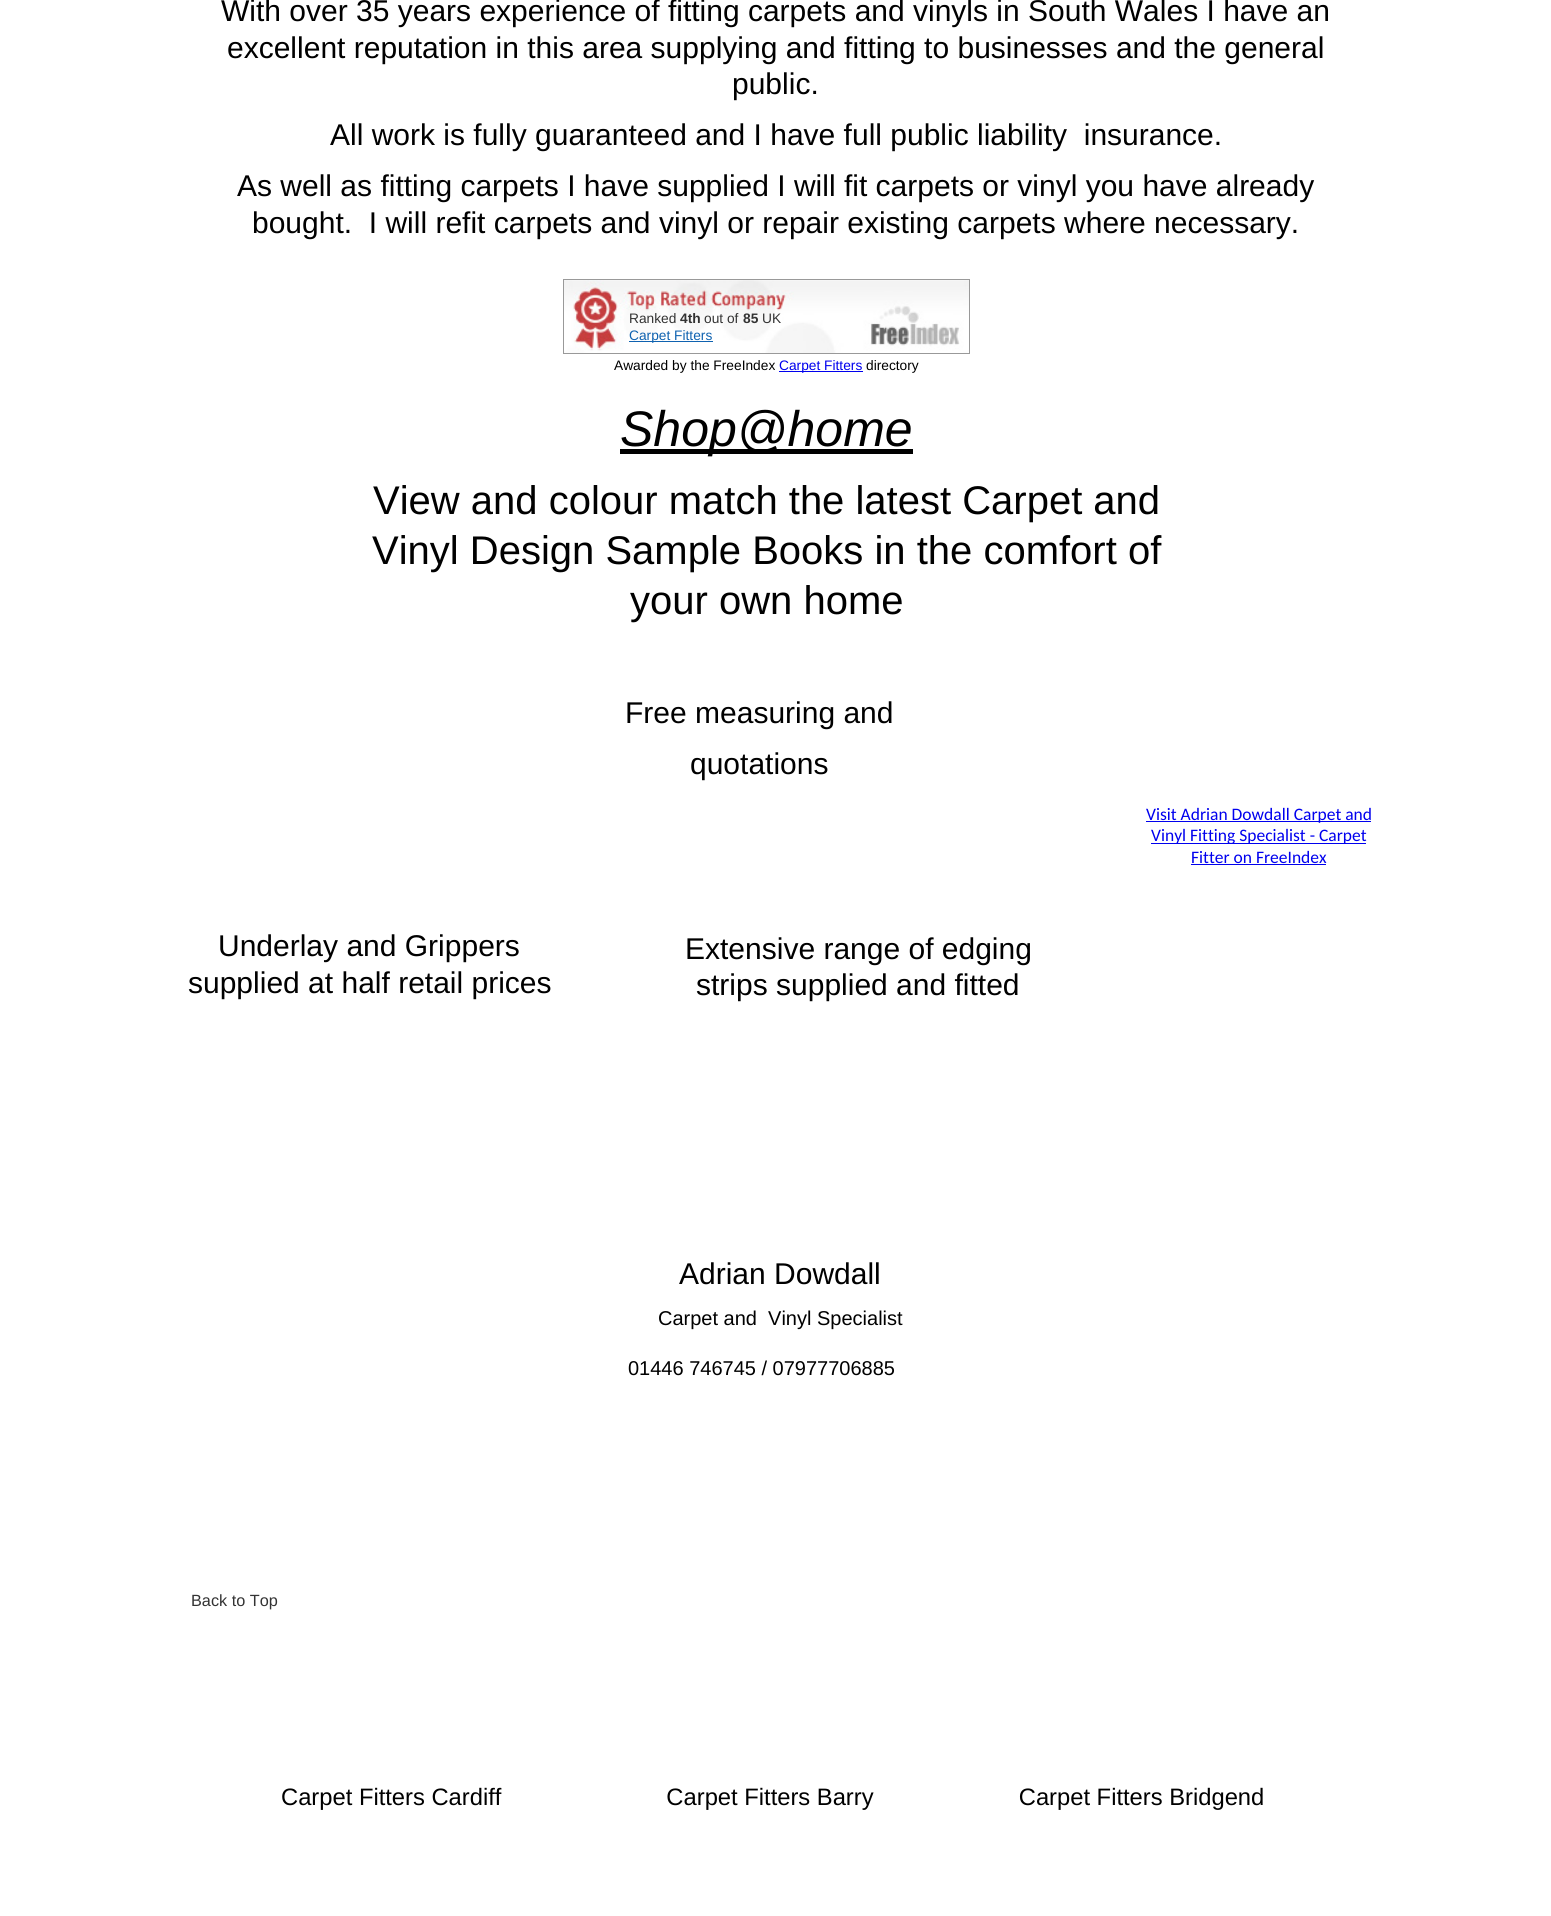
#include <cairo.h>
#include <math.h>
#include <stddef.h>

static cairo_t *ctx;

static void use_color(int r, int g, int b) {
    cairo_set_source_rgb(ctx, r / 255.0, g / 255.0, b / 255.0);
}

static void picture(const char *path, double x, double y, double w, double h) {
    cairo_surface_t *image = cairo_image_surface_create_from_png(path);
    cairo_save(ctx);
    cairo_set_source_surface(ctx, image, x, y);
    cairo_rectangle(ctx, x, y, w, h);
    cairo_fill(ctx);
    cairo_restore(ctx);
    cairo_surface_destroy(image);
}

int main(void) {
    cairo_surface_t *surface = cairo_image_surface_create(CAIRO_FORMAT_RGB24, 1551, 1916);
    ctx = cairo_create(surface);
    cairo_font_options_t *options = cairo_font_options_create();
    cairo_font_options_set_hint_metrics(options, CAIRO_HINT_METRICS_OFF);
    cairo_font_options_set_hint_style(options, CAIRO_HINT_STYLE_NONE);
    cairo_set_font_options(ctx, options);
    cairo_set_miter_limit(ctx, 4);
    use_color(255, 255, 255);
    cairo_paint(ctx);
    cairo_select_font_face(ctx, "Liberation Sans", CAIRO_FONT_SLANT_NORMAL, CAIRO_FONT_WEIGHT_NORMAL);
    cairo_set_font_size(ctx, 30);
    use_color(0, 0, 0);
    cairo_move_to(ctx, 221, 21);
    cairo_show_text(ctx, "With over 35 years experience of fitting carpets and vinyls in South Wales I have an");
    cairo_move_to(ctx, 227, 58);
    cairo_show_text(ctx, "excellent reputation in this area supplying and fitting to businesses and the general");
    cairo_move_to(ctx, 732, 94);
    cairo_show_text(ctx, "public.");
    cairo_move_to(ctx, 330, 145);
    cairo_show_text(ctx, "All work is fully guaranteed and I have full public liability  insurance.");
    cairo_move_to(ctx, 237, 196);
    cairo_show_text(ctx, "As well as fitting carpets I have supplied I will fit carpets or vinyl you have already");
    cairo_move_to(ctx, 252, 233);
    cairo_show_text(ctx, "bought.  I will refit carpets and vinyl or repair existing carpets where necessary.");
    picture("img1.png", 564, 280, 405, 73);
    cairo_rectangle(ctx, 563.5, 279.5, 406, 74);
    use_color(153, 153, 153);
    cairo_set_line_width(ctx, 1);
    cairo_stroke(ctx);
    cairo_set_font_size(ctx, 13.75);
    use_color(51, 51, 51);
    cairo_move_to(ctx, 629, 323);
    cairo_show_text(ctx, "Ranked");
    cairo_select_font_face(ctx, "Liberation Sans", CAIRO_FONT_SLANT_NORMAL, CAIRO_FONT_WEIGHT_BOLD);
    cairo_move_to(ctx, 680, 323);
    cairo_show_text(ctx, "4th");
    cairo_select_font_face(ctx, "Liberation Sans", CAIRO_FONT_SLANT_NORMAL, CAIRO_FONT_WEIGHT_NORMAL);
    cairo_move_to(ctx, 704, 323);
    cairo_show_text(ctx, "out of");
    cairo_select_font_face(ctx, "Liberation Sans", CAIRO_FONT_SLANT_NORMAL, CAIRO_FONT_WEIGHT_BOLD);
    cairo_move_to(ctx, 743, 323);
    cairo_show_text(ctx, "85");
    cairo_select_font_face(ctx, "Liberation Sans", CAIRO_FONT_SLANT_NORMAL, CAIRO_FONT_WEIGHT_NORMAL);
    cairo_move_to(ctx, 762, 323);
    cairo_show_text(ctx, "UK");
    use_color(15, 98, 176);
    cairo_rectangle(ctx, 629, 341, 84, 1);
    cairo_fill(ctx);
    cairo_move_to(ctx, 629, 340);
    cairo_show_text(ctx, "Carpet Fitters");
    use_color(0, 0, 0);
    cairo_move_to(ctx, 614, 370);
    cairo_show_text(ctx, "Awarded by the FreeIndex");
    use_color(0, 0, 238);
    cairo_rectangle(ctx, 779, 371, 84, 1);
    cairo_fill(ctx);
    cairo_move_to(ctx, 779, 370);
    cairo_show_text(ctx, "Carpet Fitters");
    use_color(0, 0, 0);
    cairo_move_to(ctx, 866, 370);
    cairo_show_text(ctx, "directory");
    cairo_rectangle(ctx, 620, 449, 293, 5);
    cairo_fill(ctx);
    cairo_select_font_face(ctx, "Liberation Sans", CAIRO_FONT_SLANT_ITALIC, CAIRO_FONT_WEIGHT_NORMAL);
    cairo_set_font_size(ctx, 50);
    cairo_move_to(ctx, 620, 446);
    cairo_show_text(ctx, "Shop@home");
    cairo_select_font_face(ctx, "Liberation Sans", CAIRO_FONT_SLANT_NORMAL, CAIRO_FONT_WEIGHT_NORMAL);
    cairo_set_font_size(ctx, 40);
    cairo_move_to(ctx, 373, 514);
    cairo_show_text(ctx, "View and colour match the latest Carpet and");
    cairo_move_to(ctx, 372, 564);
    cairo_show_text(ctx, "Vinyl Design Sample Books in the comfort of");
    cairo_move_to(ctx, 630, 614);
    cairo_show_text(ctx, "your own home");
    cairo_set_font_size(ctx, 30);
    cairo_move_to(ctx, 625, 723);
    cairo_show_text(ctx, "Free measuring and");
    cairo_move_to(ctx, 690, 774);
    cairo_show_text(ctx, "quotations");
    use_color(0, 0, 238);
    cairo_rectangle(ctx, 1146, 821, 225, 1);
    cairo_fill(ctx);
    cairo_select_font_face(ctx, "Carlito", CAIRO_FONT_SLANT_NORMAL, CAIRO_FONT_WEIGHT_NORMAL);
    cairo_set_font_size(ctx, 17.5);
    cairo_move_to(ctx, 1146, 820);
    cairo_show_text(ctx, "Visit Adrian Dowdall Carpet and");
    cairo_rectangle(ctx, 1151, 843, 215, 1);
    cairo_fill(ctx);
    cairo_move_to(ctx, 1151, 841);
    cairo_show_text(ctx, "Vinyl Fitting Specialist - Carpet");
    cairo_move_to(ctx, 1191, 863);
    cairo_show_text(ctx, "Fitter on FreeIndex");
    cairo_rectangle(ctx, 1191, 864, 135, 1);
    cairo_fill(ctx);
    cairo_select_font_face(ctx, "Liberation Sans", CAIRO_FONT_SLANT_NORMAL, CAIRO_FONT_WEIGHT_NORMAL);
    cairo_set_font_size(ctx, 30);
    use_color(0, 0, 0);
    cairo_move_to(ctx, 218, 956);
    cairo_show_text(ctx, "Underlay and Grippers");
    cairo_move_to(ctx, 188, 993);
    cairo_show_text(ctx, "supplied at half retail prices");
    cairo_move_to(ctx, 685, 959);
    cairo_show_text(ctx, "Extensive range of edging");
    cairo_move_to(ctx, 696, 995);
    cairo_show_text(ctx, "strips supplied and fitted");
    cairo_move_to(ctx, 679, 1284);
    cairo_show_text(ctx, "Adrian Dowdall");
    cairo_set_font_size(ctx, 20);
    cairo_move_to(ctx, 658, 1325);
    cairo_show_text(ctx, "Carpet and  Vinyl Specialist");
    cairo_move_to(ctx, 628, 1375);
    cairo_show_text(ctx, "01446 746745 / 07977706885");
    cairo_set_font_size(ctx, 16.25);
    use_color(51, 51, 51);
    cairo_move_to(ctx, 191, 1606);
    cairo_show_text(ctx, "Back to Top");
    cairo_set_font_size(ctx, 23.75);
    use_color(0, 0, 0);
    cairo_move_to(ctx, 281, 1805);
    cairo_show_text(ctx, "Carpet Fitters Cardiff                         Carpet Fitters Barry                      Carpet Fitters Bridgend");
    cairo_surface_write_to_png(surface, "result.png");
    cairo_font_options_destroy(options);
    cairo_destroy(ctx);
    cairo_surface_destroy(surface);
    return 0;
}
